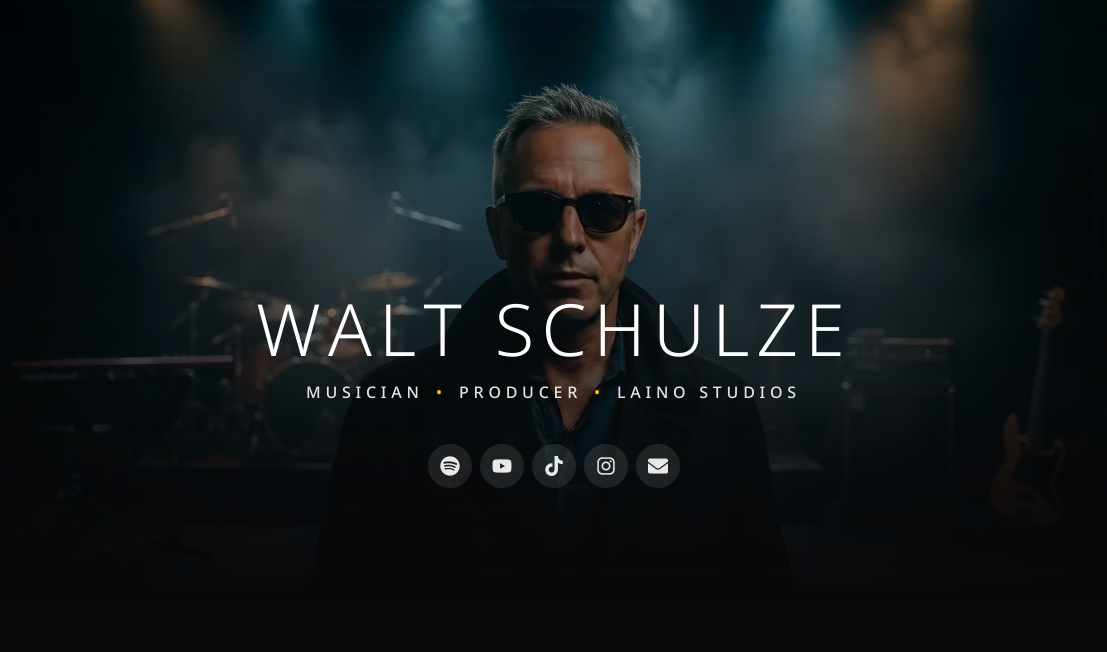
#include <cairo.h>
#include <math.h>
#include <stddef.h>

static cairo_t *ctx;

static void use_color(int r, int g, int b) {
    cairo_set_source_rgb(ctx, r / 255.0, g / 255.0, b / 255.0);
}

static void spaced_text(double x, double y, const char *s, double letter, double word) {
    cairo_move_to(ctx, x, y);
    while (*s) {
        char ch[5] = {0};
        int n = 0;
        do ch[n++] = *s++; while ((*s & 0xC0) == 0x80);
        cairo_show_text(ctx, ch);
        cairo_rel_move_to(ctx, letter + word * (*ch == ' '), 0);
    }
}

static void picture(const char *path, double x, double y, double w, double h) {
    cairo_surface_t *image = cairo_image_surface_create_from_png(path);
    cairo_save(ctx);
    cairo_set_source_surface(ctx, image, x, y);
    cairo_rectangle(ctx, x, y, w, h);
    cairo_fill(ctx);
    cairo_restore(ctx);
    cairo_surface_destroy(image);
}

int main(void) {
    cairo_surface_t *surface = cairo_image_surface_create(CAIRO_FORMAT_RGB24, 1107, 652);
    ctx = cairo_create(surface);
    cairo_font_options_t *options = cairo_font_options_create();
    cairo_font_options_set_hint_metrics(options, CAIRO_HINT_METRICS_OFF);
    cairo_font_options_set_hint_style(options, CAIRO_HINT_STYLE_NONE);
    cairo_set_font_options(ctx, options);
    cairo_set_miter_limit(ctx, 4);
    use_color(9, 9, 11);
    cairo_paint(ctx);
    picture("img1.png", 0, 0, 1107, 600);
    cairo_select_font_face(ctx, "Noto Sans Light", CAIRO_FONT_SLANT_NORMAL, CAIRO_FONT_WEIGHT_NORMAL);
    cairo_set_font_size(ctx, 72);
    use_color(255, 255, 255);
    spaced_text(256, 356, "WALT SCHULZE", 7.25, 0);
    cairo_select_font_face(ctx, "Noto Sans Medium", CAIRO_FONT_SLANT_NORMAL, CAIRO_FONT_WEIGHT_NORMAL);
    cairo_set_font_size(ctx, 16);
    use_color(228, 228, 231);
    spaced_text(306, 398, "MUSICIAN", 4.75, 0);
    use_color(255, 185, 0);
    spaced_text(436, 398, "•", 4.75, 0);
    use_color(228, 228, 231);
    spaced_text(459, 398, "PRODUCER", 4.75, 0);
    use_color(255, 185, 0);
    spaced_text(594, 398, "•", 4.75, 0);
    use_color(228, 228, 231);
    spaced_text(617, 398, "LAINO STUDIOS", 4.75, 0);
    cairo_set_source_rgba(ctx, 1, 1, 1, 0.1);
    cairo_new_path(ctx);
    cairo_arc(ctx, 450, 466, 22, 0, 2 * M_PI);
    cairo_fill(ctx);
    picture("img2.png", 440, 456, 20, 20);
    cairo_arc(ctx, 502, 466, 22, 0, 2 * M_PI);
    cairo_fill(ctx);
    picture("img3.png", 492, 459, 20, 14);
    cairo_arc(ctx, 554, 466, 22, 0, 2 * M_PI);
    cairo_fill(ctx);
    picture("img4.png", 545, 456, 18, 20);
    cairo_arc(ctx, 606, 466, 22, 0, 2 * M_PI);
    cairo_fill(ctx);
    picture("img5.png", 597, 457, 18, 18);
    cairo_arc(ctx, 658, 466, 22, 0, 2 * M_PI);
    cairo_fill(ctx);
    picture("img6.png", 648, 458, 20, 16);
    cairo_surface_write_to_png(surface, "result.png");
    cairo_font_options_destroy(options);
    cairo_destroy(ctx);
    cairo_surface_destroy(surface);
    return 0;
}
